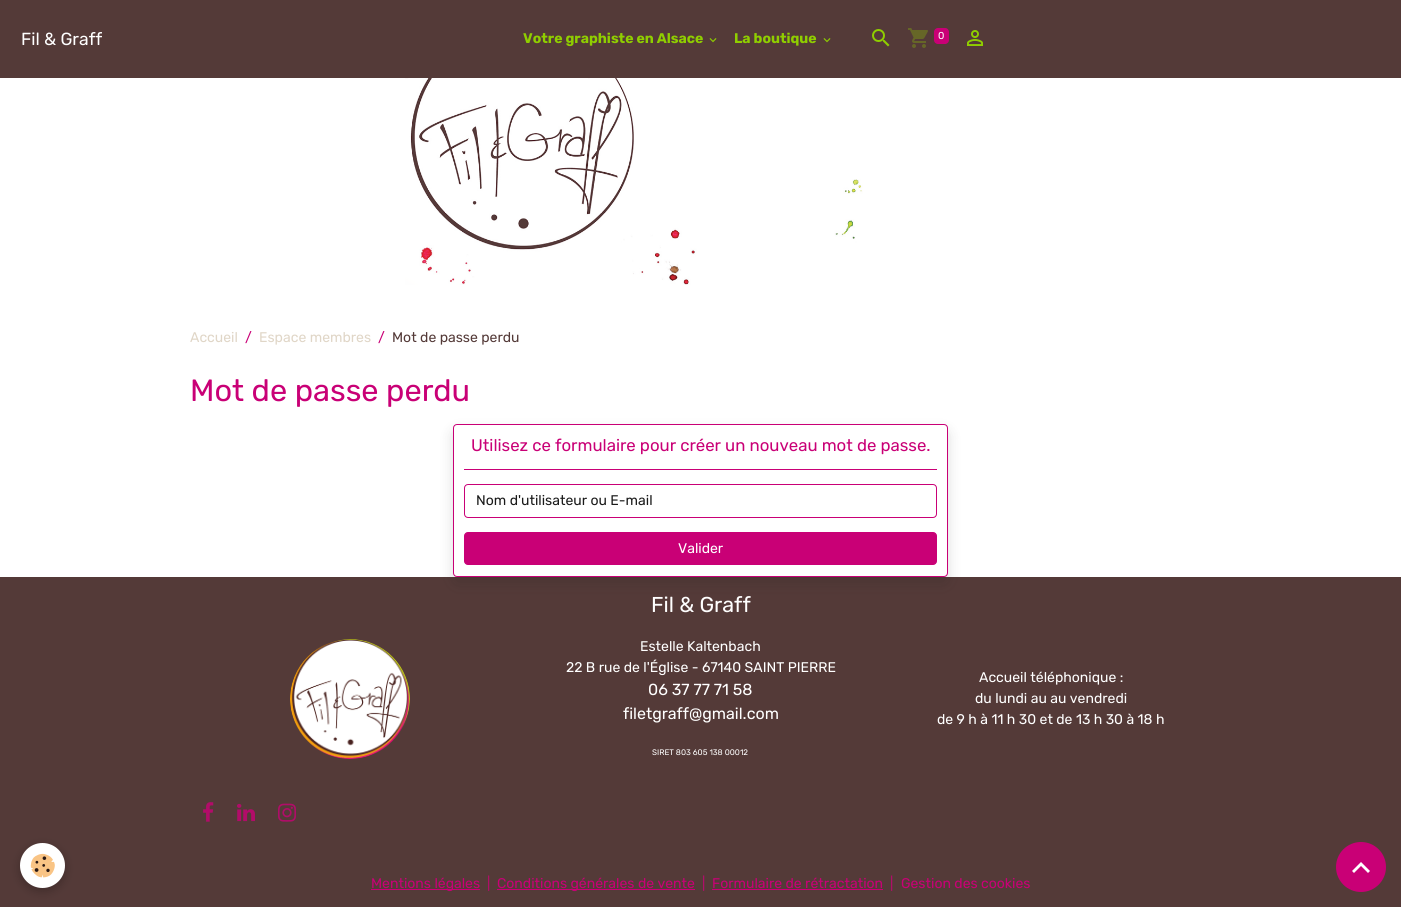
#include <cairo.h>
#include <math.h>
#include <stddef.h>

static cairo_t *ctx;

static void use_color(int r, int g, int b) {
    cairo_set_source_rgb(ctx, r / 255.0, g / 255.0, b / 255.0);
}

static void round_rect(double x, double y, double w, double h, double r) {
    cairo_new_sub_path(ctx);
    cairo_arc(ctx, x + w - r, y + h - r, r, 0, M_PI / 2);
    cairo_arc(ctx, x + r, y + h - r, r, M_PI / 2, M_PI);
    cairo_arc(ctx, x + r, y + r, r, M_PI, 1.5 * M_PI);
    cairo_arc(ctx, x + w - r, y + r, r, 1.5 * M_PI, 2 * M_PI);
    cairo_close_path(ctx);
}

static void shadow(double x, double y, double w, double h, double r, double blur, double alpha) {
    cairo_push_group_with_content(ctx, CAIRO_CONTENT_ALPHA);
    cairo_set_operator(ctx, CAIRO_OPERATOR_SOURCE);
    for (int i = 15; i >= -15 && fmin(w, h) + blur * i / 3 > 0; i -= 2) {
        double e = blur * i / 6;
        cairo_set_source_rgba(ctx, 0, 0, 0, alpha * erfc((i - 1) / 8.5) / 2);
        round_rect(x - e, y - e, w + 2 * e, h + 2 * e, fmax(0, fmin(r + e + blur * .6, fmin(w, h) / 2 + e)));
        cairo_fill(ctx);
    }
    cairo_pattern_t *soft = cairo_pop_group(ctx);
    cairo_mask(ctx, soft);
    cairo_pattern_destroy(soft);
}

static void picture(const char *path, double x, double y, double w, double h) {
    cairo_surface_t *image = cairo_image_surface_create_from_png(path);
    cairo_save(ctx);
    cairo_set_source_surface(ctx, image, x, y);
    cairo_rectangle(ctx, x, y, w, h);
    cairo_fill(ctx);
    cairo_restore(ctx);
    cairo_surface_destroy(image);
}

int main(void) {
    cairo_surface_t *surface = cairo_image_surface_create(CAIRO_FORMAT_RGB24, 1401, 907);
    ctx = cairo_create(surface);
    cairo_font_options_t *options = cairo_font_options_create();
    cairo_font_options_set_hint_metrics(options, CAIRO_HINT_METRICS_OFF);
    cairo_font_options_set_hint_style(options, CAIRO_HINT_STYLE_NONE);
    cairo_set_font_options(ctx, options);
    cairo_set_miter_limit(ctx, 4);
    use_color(255, 255, 255);
    cairo_paint(ctx);
    use_color(84, 58, 56);
    cairo_rectangle(ctx, 0, 0, 1401, 78);
    cairo_fill(ctx);
    cairo_select_font_face(ctx, "Rubik", CAIRO_FONT_SLANT_NORMAL, CAIRO_FONT_WEIGHT_NORMAL);
    cairo_set_font_size(ctx, 17.5);
    use_color(255, 255, 255);
    cairo_move_to(ctx, 21, 45);
    cairo_show_text(ctx, "Fil & Graff");
    cairo_select_font_face(ctx, "Rubik", CAIRO_FONT_SLANT_NORMAL, CAIRO_FONT_WEIGHT_BOLD);
    cairo_set_font_size(ctx, 14);
    use_color(143, 206, 0);
    cairo_move_to(ctx, 523, 43);
    cairo_show_text(ctx, "Votre graphiste en Alsace");
    picture("img1.png", 709, 38, 8, 5);
    cairo_move_to(ctx, 734, 43);
    cairo_show_text(ctx, "La boutique");
    picture("img1.png", 823, 38, 8, 5);
    picture("img2.png", 872, 29, 18, 18);
    picture("img3.png", 908, 28, 20, 20);
    use_color(201, 0, 118);
    round_rect(934, 28, 15, 16, 4);
    cairo_fill(ctx);
    cairo_select_font_face(ctx, "Rubik", CAIRO_FONT_SLANT_NORMAL, CAIRO_FONT_WEIGHT_NORMAL);
    cairo_set_font_size(ctx, 10);
    use_color(255, 255, 255);
    cairo_move_to(ctx, 938, 39);
    cairo_show_text(ctx, "0");
    picture("img4.png", 967, 30, 16, 16);
    picture("img5.png", 405, 78, 458, 207);
    cairo_set_font_size(ctx, 14);
    use_color(224, 214, 199);
    cairo_move_to(ctx, 190, 342);
    cairo_show_text(ctx, "Accueil");
    use_color(201, 0, 118);
    cairo_move_to(ctx, 245, 342);
    cairo_show_text(ctx, "/");
    use_color(224, 214, 199);
    cairo_move_to(ctx, 259, 342);
    cairo_show_text(ctx, "Espace membres");
    use_color(201, 0, 118);
    cairo_move_to(ctx, 378, 342);
    cairo_show_text(ctx, "/");
    use_color(84, 58, 56);
    cairo_move_to(ctx, 392, 342);
    cairo_show_text(ctx, "Mot de passe perdu");
    cairo_set_font_size(ctx, 30.75);
    use_color(201, 0, 118);
    cairo_move_to(ctx, 190, 401);
    cairo_show_text(ctx, "Mot de passe perdu");
    use_color(84, 58, 56);
    cairo_rectangle(ctx, 0, 577, 1401, 330);
    cairo_fill(ctx);
    use_color(26, 26, 26);
    shadow(453, 431, 495, 153, 4, 7, 0.15);
    use_color(255, 255, 255);
    round_rect(453.5, 424.5, 494, 152, 3.5);
    cairo_fill_preserve(ctx);
    use_color(201, 0, 118);
    cairo_set_line_width(ctx, 1);
    cairo_stroke(ctx);
    cairo_rectangle(ctx, 464, 469, 473, 1);
    cairo_fill(ctx);
    cairo_set_font_size(ctx, 16.8);
    cairo_move_to(ctx, 471, 451);
    cairo_show_text(ctx, "Utilisez ce formulaire pour créer un nouveau mot de passe.");
    round_rect(464.5, 484.5, 472, 33, 3.5);
    cairo_stroke(ctx);
    cairo_set_font_size(ctx, 14);
    use_color(26, 26, 26);
    cairo_move_to(ctx, 476, 505);
    cairo_show_text(ctx, "Nom d'utilisateur ou E-mail");
    use_color(201, 0, 118);
    round_rect(464.5, 532.5, 472, 32, 3.5);
    cairo_fill_preserve(ctx);
    cairo_stroke(ctx);
    use_color(255, 255, 255);
    cairo_move_to(ctx, 678, 553);
    cairo_show_text(ctx, "Valider");
    use_color(0, 0, 0);
    shadow(20, 846, 45, 45, 22.5, 5, 0.24);
    use_color(255, 255, 255);
    cairo_arc(ctx, 42.5, 865.5, 22.5, 0, 2 * M_PI);
    cairo_fill(ctx);
    picture("img6.png", 30, 853, 25, 25);
    cairo_set_font_size(ctx, 21.5);
    cairo_move_to(ctx, 651, 612);
    cairo_show_text(ctx, "Fil & Graff");
    picture("img7.png", 290, 639, 120, 120);
    cairo_set_font_size(ctx, 14);
    cairo_move_to(ctx, 640, 651);
    cairo_show_text(ctx, "Estelle Kaltenbach");
    cairo_move_to(ctx, 566, 672);
    cairo_show_text(ctx, "22 B rue de l'Église - 67140 SAINT PIERRE");
    cairo_set_font_size(ctx, 16);
    cairo_move_to(ctx, 648, 695);
    cairo_show_text(ctx, "06 37 77 71 58");
    cairo_move_to(ctx, 623, 719);
    cairo_show_text(ctx, "filetgraff@gmail.com");
    cairo_set_font_size(ctx, 8);
    cairo_move_to(ctx, 652, 755);
    cairo_show_text(ctx, "SIRET 803 605 138 00012");
    cairo_set_font_size(ctx, 14);
    cairo_move_to(ctx, 979, 682);
    cairo_show_text(ctx, "Accueil téléphonique :");
    cairo_move_to(ctx, 975, 703);
    cairo_show_text(ctx, "du lundi au au vendredi");
    cairo_move_to(ctx, 937, 724);
    cairo_show_text(ctx, "de 9 h à 11 h 30 et de 13 h 30 à 18 h");
    picture("img8.png", 203, 802, 11, 20);
    picture("img9.png", 237, 803, 18, 19);
    picture("img10.png", 278, 803, 18, 19);
    use_color(201, 0, 118);
    cairo_rectangle(ctx, 371, 889, 109, 1);
    cairo_fill(ctx);
    cairo_move_to(ctx, 371, 888);
    cairo_show_text(ctx, "Mentions légales");
    use_color(178, 12, 106);
    cairo_move_to(ctx, 487, 888);
    cairo_show_text(ctx, "|");
    use_color(201, 0, 118);
    cairo_rectangle(ctx, 497, 889, 198, 1);
    cairo_fill(ctx);
    cairo_move_to(ctx, 497, 888);
    cairo_show_text(ctx, "Conditions générales de vente");
    use_color(178, 12, 106);
    cairo_move_to(ctx, 702, 888);
    cairo_show_text(ctx, "|");
    use_color(201, 0, 118);
    cairo_move_to(ctx, 712, 888);
    cairo_show_text(ctx, "Formulaire de rétractation");
    cairo_rectangle(ctx, 712, 889, 171, 1);
    cairo_fill(ctx);
    use_color(178, 12, 106);
    cairo_move_to(ctx, 890, 888);
    cairo_show_text(ctx, "|");
    use_color(201, 0, 118);
    cairo_move_to(ctx, 901, 888);
    cairo_show_text(ctx, "Gestion des cookies");
    cairo_new_path(ctx);
    cairo_arc(ctx, 1361, 867, 25, 0, 2 * M_PI);
    cairo_fill(ctx);
    use_color(255, 255, 255);
    cairo_new_path(ctx);
    cairo_move_to(ctx, 1361, 862);
    cairo_line_to(ctx, 1370, 871);
    cairo_line_to(ctx, 1368, 873);
    cairo_line_to(ctx, 1361, 866);
    cairo_line_to(ctx, 1354, 873);
    cairo_line_to(ctx, 1352, 871);
    cairo_close_path(ctx);
    cairo_fill(ctx);
    cairo_surface_write_to_png(surface, "result.png");
    cairo_font_options_destroy(options);
    cairo_destroy(ctx);
    cairo_surface_destroy(surface);
    return 0;
}
